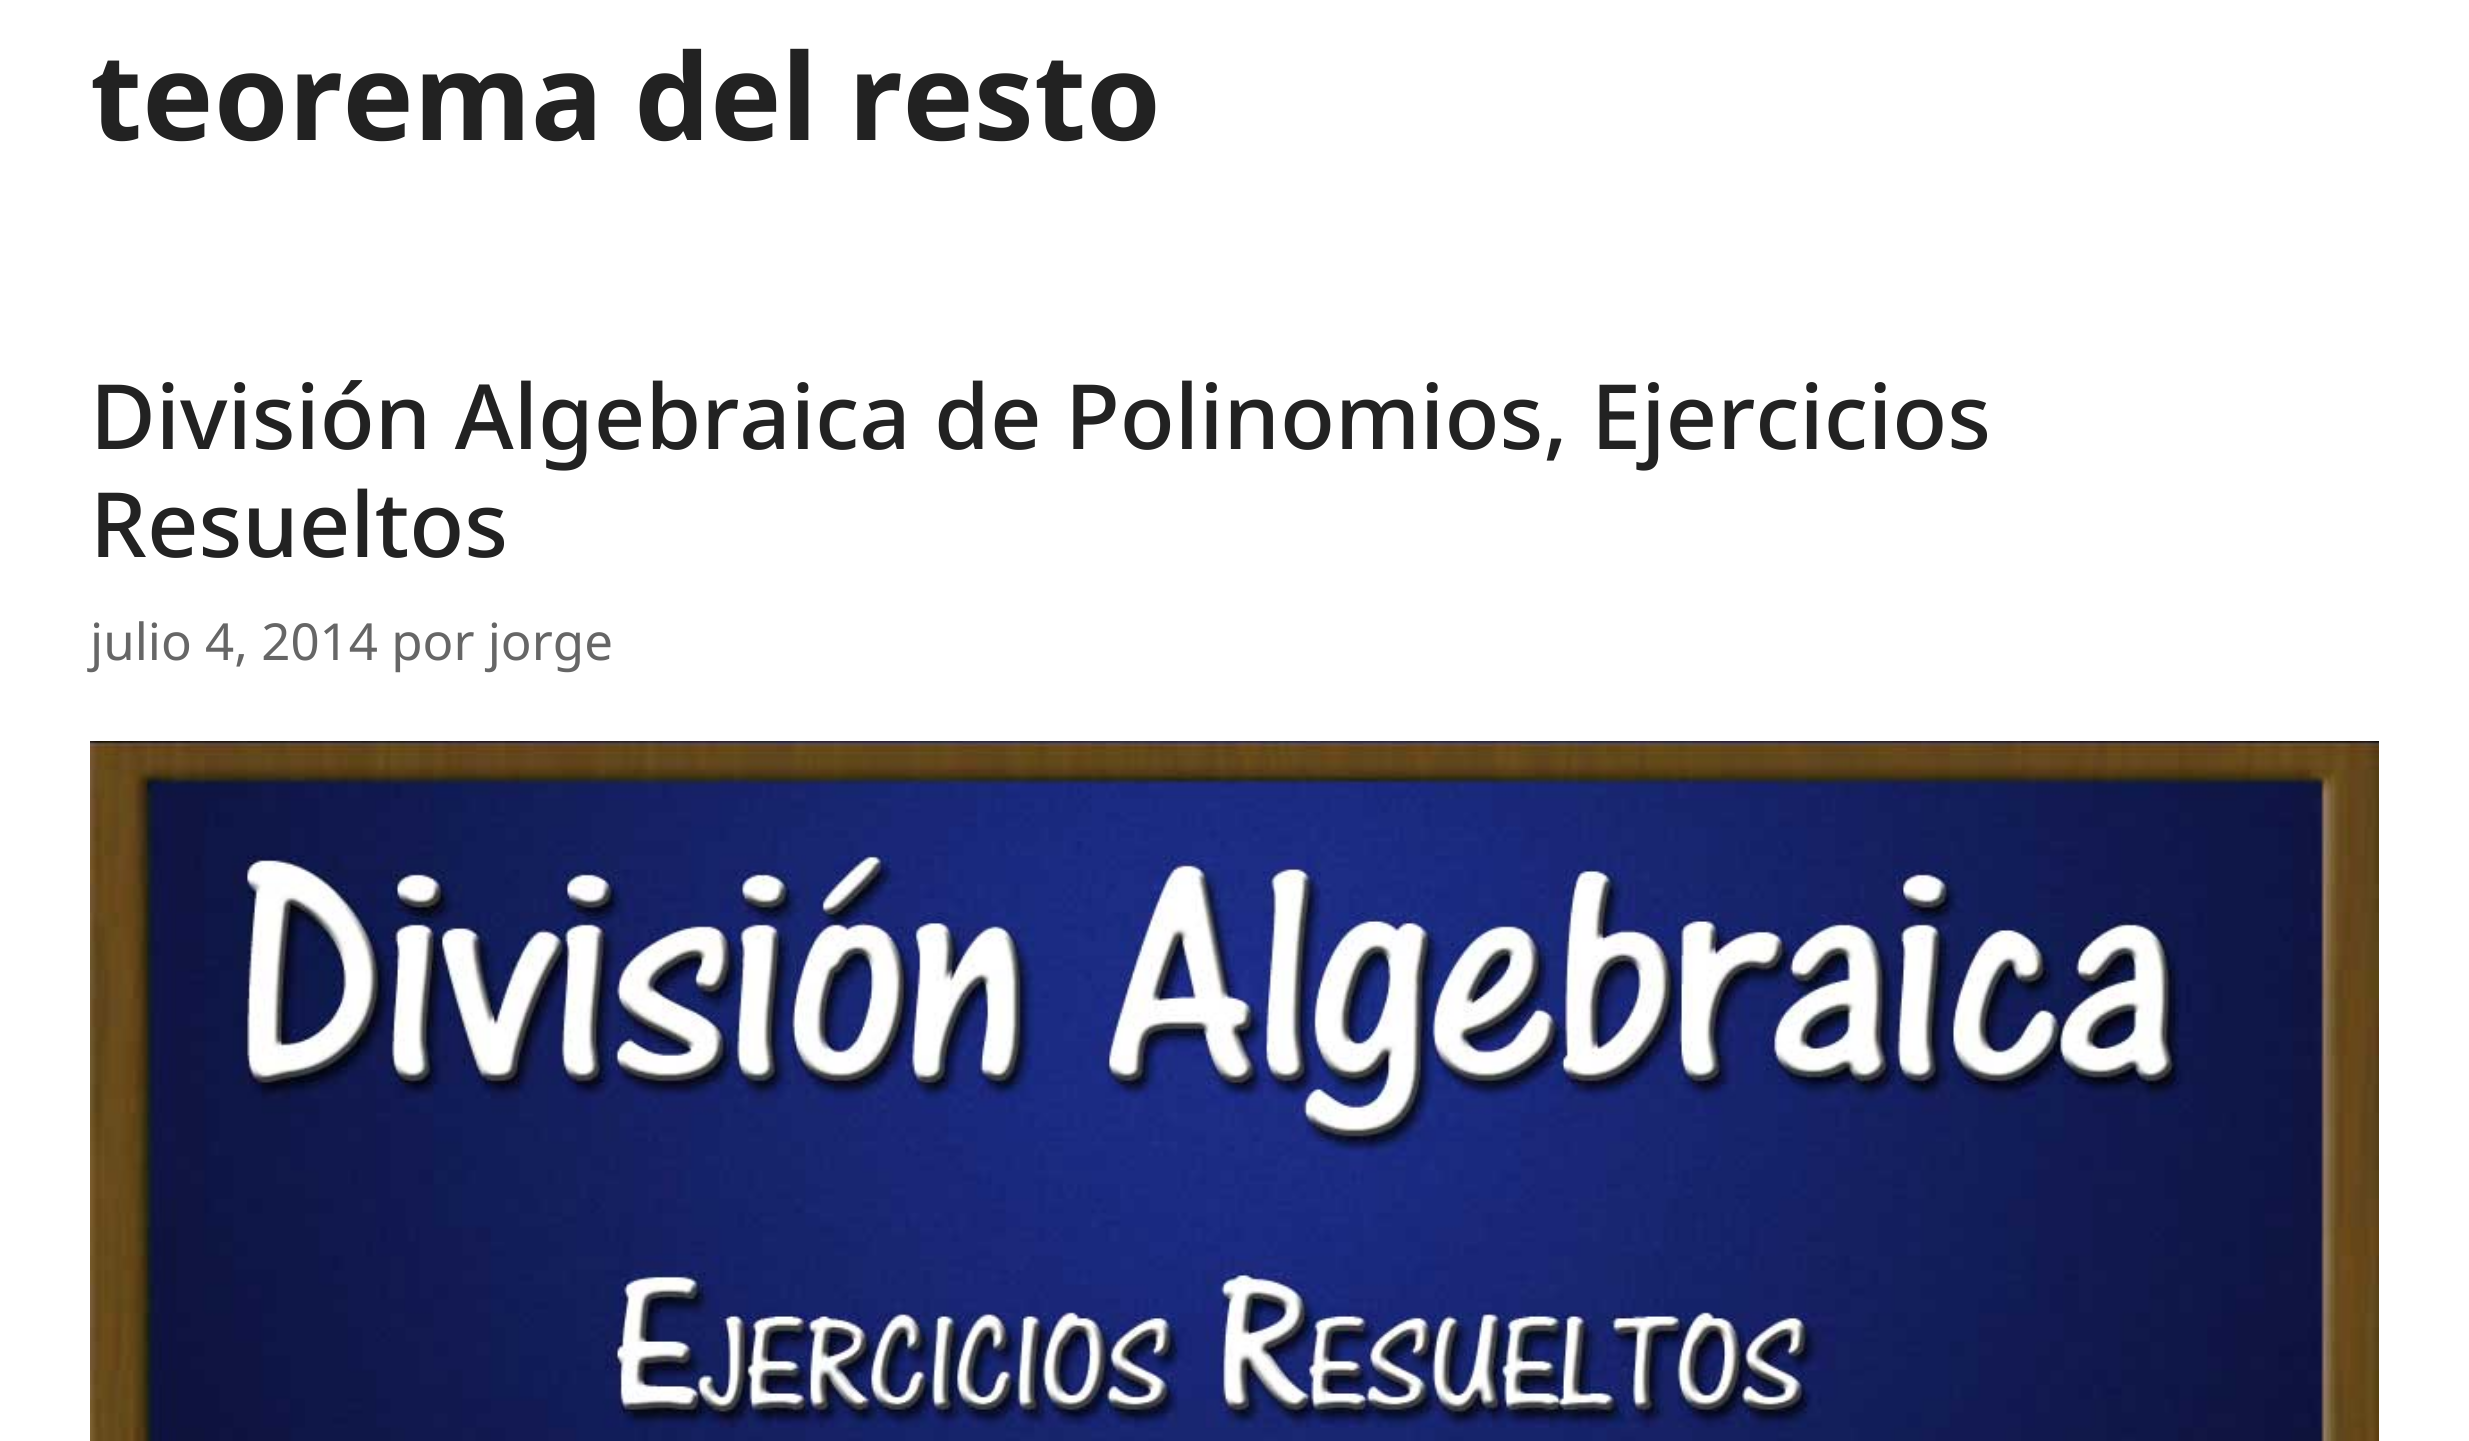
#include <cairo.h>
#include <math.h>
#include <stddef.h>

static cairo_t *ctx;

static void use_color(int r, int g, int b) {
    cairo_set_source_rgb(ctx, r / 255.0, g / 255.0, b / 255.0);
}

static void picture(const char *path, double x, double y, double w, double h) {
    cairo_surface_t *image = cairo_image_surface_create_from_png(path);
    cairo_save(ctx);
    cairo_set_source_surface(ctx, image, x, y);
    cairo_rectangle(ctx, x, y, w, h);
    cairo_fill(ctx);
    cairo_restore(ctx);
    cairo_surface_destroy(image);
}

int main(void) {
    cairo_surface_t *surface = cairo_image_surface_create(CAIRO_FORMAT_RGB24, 2469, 1441);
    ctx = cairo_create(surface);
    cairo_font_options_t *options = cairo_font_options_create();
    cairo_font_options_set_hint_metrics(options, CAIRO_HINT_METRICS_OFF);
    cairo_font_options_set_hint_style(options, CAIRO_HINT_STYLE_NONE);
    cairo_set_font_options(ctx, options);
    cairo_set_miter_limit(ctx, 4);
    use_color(255, 255, 255);
    cairo_paint(ctx);
    cairo_select_font_face(ctx, "Noto Sans", CAIRO_FONT_SLANT_NORMAL, CAIRO_FONT_WEIGHT_BOLD);
    cairo_set_font_size(ctx, 120);
    use_color(34, 34, 34);
    cairo_move_to(ctx, 90, 140);
    cairo_show_text(ctx, "teorema del resto");
    cairo_select_font_face(ctx, "Noto Sans Medium", CAIRO_FONT_SLANT_NORMAL, CAIRO_FONT_WEIGHT_NORMAL);
    cairo_set_font_size(ctx, 90);
    cairo_move_to(ctx, 90, 449);
    cairo_show_text(ctx, "División Algebraica de Polinomios, Ejercicios");
    cairo_move_to(ctx, 90, 557);
    cairo_show_text(ctx, "Resueltos");
    cairo_select_font_face(ctx, "Noto Sans", CAIRO_FONT_SLANT_NORMAL, CAIRO_FONT_WEIGHT_NORMAL);
    cairo_set_font_size(ctx, 51);
    use_color(102, 102, 102);
    cairo_move_to(ctx, 90, 660);
    cairo_show_text(ctx, "julio 4, 2014 por jorge");
    picture("img1.png", 90, 741, 2289, 700);
    cairo_surface_write_to_png(surface, "result.png");
    cairo_font_options_destroy(options);
    cairo_destroy(ctx);
    cairo_surface_destroy(surface);
    return 0;
}
